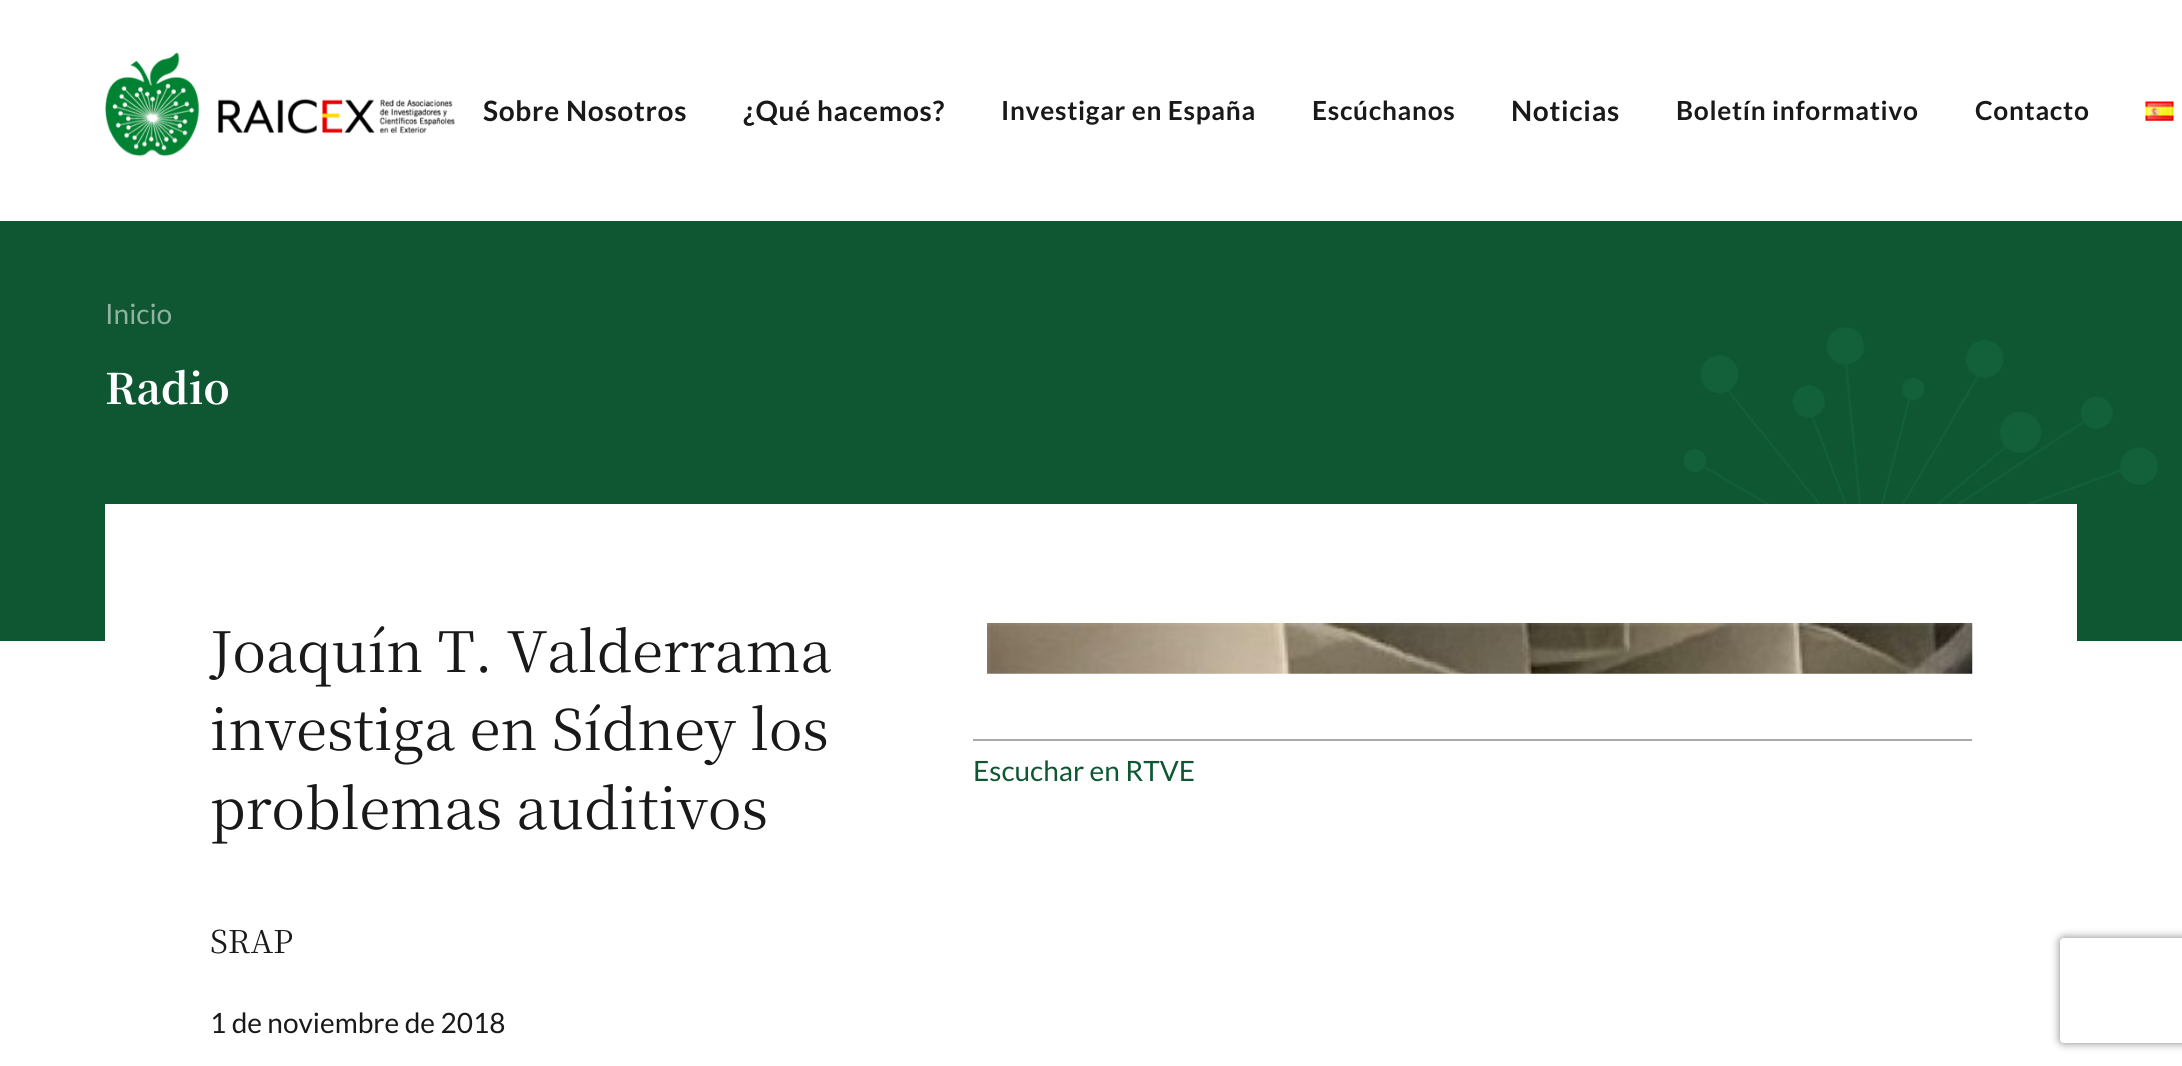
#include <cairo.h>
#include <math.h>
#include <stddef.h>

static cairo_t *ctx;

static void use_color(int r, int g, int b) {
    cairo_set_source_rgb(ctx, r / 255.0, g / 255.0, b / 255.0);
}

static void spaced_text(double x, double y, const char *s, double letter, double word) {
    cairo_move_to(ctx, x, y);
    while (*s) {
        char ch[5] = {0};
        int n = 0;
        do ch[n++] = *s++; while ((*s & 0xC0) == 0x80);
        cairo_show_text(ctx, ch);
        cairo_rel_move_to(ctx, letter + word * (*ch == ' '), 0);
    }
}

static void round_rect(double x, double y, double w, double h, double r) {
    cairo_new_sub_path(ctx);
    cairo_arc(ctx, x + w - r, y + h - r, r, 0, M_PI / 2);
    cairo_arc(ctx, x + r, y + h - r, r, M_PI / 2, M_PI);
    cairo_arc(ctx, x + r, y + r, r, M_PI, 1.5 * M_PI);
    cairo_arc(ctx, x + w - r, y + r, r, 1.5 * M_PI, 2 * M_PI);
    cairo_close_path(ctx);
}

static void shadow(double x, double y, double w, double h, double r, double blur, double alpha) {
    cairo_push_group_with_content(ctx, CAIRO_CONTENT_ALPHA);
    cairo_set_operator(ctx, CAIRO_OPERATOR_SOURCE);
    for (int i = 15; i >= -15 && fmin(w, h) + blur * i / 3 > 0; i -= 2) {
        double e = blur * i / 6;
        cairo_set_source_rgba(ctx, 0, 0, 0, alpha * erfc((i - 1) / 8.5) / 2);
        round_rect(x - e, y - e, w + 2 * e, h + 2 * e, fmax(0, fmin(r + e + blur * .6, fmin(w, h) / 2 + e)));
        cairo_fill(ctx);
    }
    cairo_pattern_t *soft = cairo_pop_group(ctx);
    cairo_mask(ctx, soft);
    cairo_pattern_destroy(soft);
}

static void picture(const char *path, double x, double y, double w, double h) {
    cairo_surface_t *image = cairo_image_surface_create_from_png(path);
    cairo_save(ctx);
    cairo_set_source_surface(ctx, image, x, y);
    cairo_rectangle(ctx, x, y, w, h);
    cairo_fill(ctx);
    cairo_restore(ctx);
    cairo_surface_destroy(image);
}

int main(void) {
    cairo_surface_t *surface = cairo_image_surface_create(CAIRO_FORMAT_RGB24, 2182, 1066);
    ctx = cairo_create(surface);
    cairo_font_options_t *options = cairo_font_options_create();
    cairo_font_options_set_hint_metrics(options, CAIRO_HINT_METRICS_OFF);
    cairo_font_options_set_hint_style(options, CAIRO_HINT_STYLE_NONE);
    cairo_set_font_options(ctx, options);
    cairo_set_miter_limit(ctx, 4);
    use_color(255, 255, 255);
    cairo_paint(ctx);
    picture("img1.png", 105, 52, 350, 105);
    cairo_select_font_face(ctx, "Lato", CAIRO_FONT_SLANT_NORMAL, CAIRO_FONT_WEIGHT_BOLD);
    cairo_set_font_size(ctx, 28);
    use_color(25, 25, 25);
    spaced_text(483, 121, "Sobre Nosotros", 0.7, 0);
    spaced_text(743, 121, "¿Qué hacemos?", 0.7, 0);
    cairo_set_font_size(ctx, 26.25);
    spaced_text(1001, 120, "Investigar en España", 0.7, 0);
    spaced_text(1312, 120, "Escúchanos", 0.7, 0);
    cairo_set_font_size(ctx, 28);
    spaced_text(1511, 121, "Noticias", 0.7, 0);
    cairo_set_font_size(ctx, 26.25);
    spaced_text(1676, 120, "Boletín informativo", 0.7, 0);
    spaced_text(1975, 120, "Contacto", 0.7, 0);
    picture("img2.png", 2145, 101, 29, 20);
    use_color(15, 87, 51);
    cairo_rectangle(ctx, 0, 221, 2182, 420);
    cairo_fill(ctx);
    cairo_select_font_face(ctx, "Lato", CAIRO_FONT_SLANT_NORMAL, CAIRO_FONT_WEIGHT_NORMAL);
    cairo_set_font_size(ctx, 28);
    use_color(145, 178, 161);
    cairo_move_to(ctx, 105, 324);
    cairo_show_text(ctx, "Inicio");
    cairo_select_font_face(ctx, "Noto Serif JP", CAIRO_FONT_SLANT_NORMAL, CAIRO_FONT_WEIGHT_BOLD);
    cairo_set_font_size(ctx, 42);
    use_color(255, 255, 255);
    cairo_move_to(ctx, 105, 404);
    cairo_show_text(ctx, "Radio");
    picture("img3.png", 1684, 327, 474, 177);
    cairo_rectangle(ctx, 105, 504, 1972, 137);
    cairo_fill(ctx);
    cairo_select_font_face(ctx, "Noto Serif JP", CAIRO_FONT_SLANT_NORMAL, CAIRO_FONT_WEIGHT_NORMAL);
    cairo_set_font_size(ctx, 56);
    use_color(25, 25, 25);
    cairo_move_to(ctx, 210, 672);
    cairo_show_text(ctx, "Joaquín T. Valderrama");
    cairo_move_to(ctx, 210, 750);
    cairo_show_text(ctx, "investiga en Sídney los");
    cairo_move_to(ctx, 210, 829);
    cairo_show_text(ctx, "problemas auditivos");
    cairo_set_font_size(ctx, 31.5);
    cairo_move_to(ctx, 210, 953);
    cairo_show_text(ctx, "SRAP");
    cairo_select_font_face(ctx, "Lato", CAIRO_FONT_SLANT_NORMAL, CAIRO_FONT_WEIGHT_NORMAL);
    cairo_set_font_size(ctx, 28);
    cairo_move_to(ctx, 210, 1033);
    cairo_show_text(ctx, "1 de noviembre de 2018");
    use_color(170, 170, 170);
    cairo_rectangle(ctx, 973, 739, 999, 2);
    cairo_fill(ctx);
    picture("img4.png", 987, 623, 986, 51);
    use_color(15, 87, 51);
    cairo_move_to(ctx, 973, 781);
    cairo_show_text(ctx, "Escuchar en RTVE");
    cairo_save(ctx);
    cairo_set_fill_rule(ctx, CAIRO_FILL_RULE_EVEN_ODD);
    cairo_new_path(ctx);
    cairo_move_to(ctx, 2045, 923);
    cairo_line_to(ctx, 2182, 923);
    cairo_line_to(ctx, 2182, 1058);
    cairo_line_to(ctx, 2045, 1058);
    cairo_close_path(ctx);
    cairo_move_to(ctx, 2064, 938);
    cairo_line_to(ctx, 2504, 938);
    cairo_curve_to(ctx, 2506, 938, 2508, 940, 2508, 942);
    cairo_line_to(ctx, 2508, 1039);
    cairo_curve_to(ctx, 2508, 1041, 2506, 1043, 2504, 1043);
    cairo_line_to(ctx, 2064, 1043);
    cairo_curve_to(ctx, 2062, 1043, 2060, 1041, 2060, 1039);
    cairo_line_to(ctx, 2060, 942);
    cairo_curve_to(ctx, 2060, 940, 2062, 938, 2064, 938);
    cairo_close_path(ctx);
    cairo_clip(ctx);
    use_color(128, 128, 128);
    shadow(2060, 938, 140, 105, 4, 4.5, 1);
    cairo_restore(ctx);
    cairo_surface_write_to_png(surface, "result.png");
    cairo_font_options_destroy(options);
    cairo_destroy(ctx);
    cairo_surface_destroy(surface);
    return 0;
}
